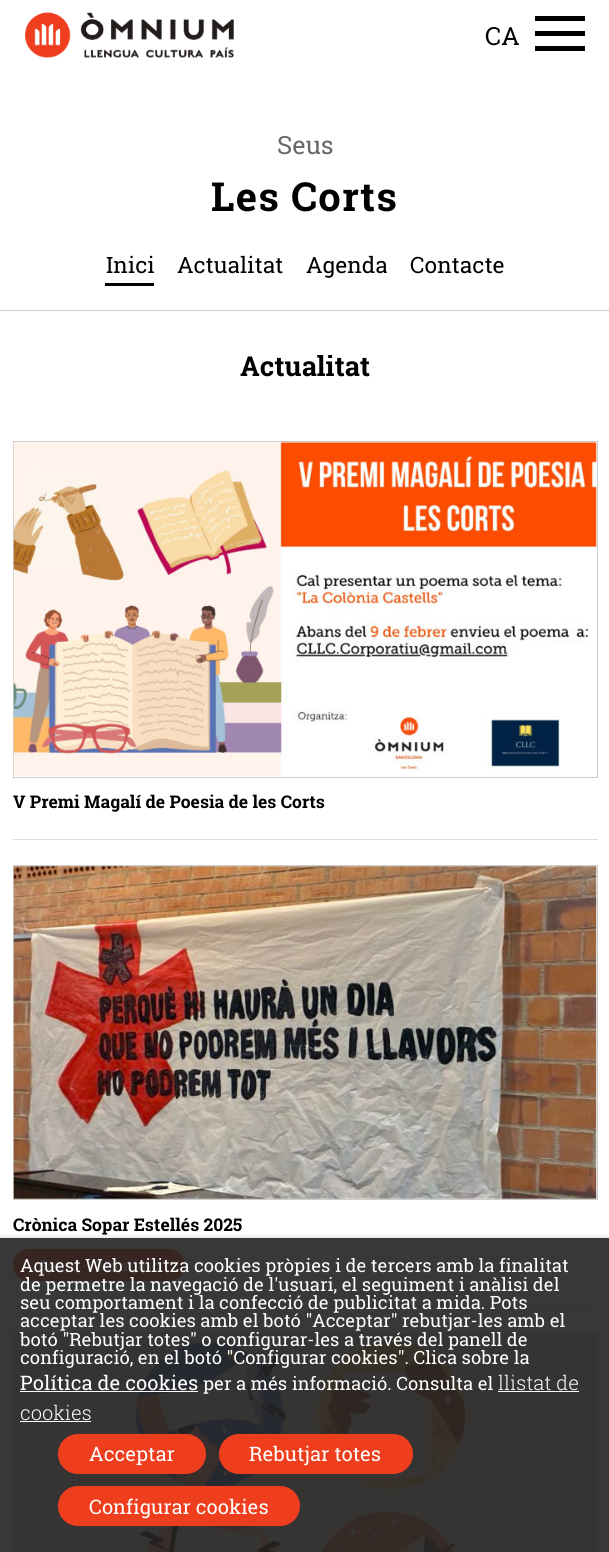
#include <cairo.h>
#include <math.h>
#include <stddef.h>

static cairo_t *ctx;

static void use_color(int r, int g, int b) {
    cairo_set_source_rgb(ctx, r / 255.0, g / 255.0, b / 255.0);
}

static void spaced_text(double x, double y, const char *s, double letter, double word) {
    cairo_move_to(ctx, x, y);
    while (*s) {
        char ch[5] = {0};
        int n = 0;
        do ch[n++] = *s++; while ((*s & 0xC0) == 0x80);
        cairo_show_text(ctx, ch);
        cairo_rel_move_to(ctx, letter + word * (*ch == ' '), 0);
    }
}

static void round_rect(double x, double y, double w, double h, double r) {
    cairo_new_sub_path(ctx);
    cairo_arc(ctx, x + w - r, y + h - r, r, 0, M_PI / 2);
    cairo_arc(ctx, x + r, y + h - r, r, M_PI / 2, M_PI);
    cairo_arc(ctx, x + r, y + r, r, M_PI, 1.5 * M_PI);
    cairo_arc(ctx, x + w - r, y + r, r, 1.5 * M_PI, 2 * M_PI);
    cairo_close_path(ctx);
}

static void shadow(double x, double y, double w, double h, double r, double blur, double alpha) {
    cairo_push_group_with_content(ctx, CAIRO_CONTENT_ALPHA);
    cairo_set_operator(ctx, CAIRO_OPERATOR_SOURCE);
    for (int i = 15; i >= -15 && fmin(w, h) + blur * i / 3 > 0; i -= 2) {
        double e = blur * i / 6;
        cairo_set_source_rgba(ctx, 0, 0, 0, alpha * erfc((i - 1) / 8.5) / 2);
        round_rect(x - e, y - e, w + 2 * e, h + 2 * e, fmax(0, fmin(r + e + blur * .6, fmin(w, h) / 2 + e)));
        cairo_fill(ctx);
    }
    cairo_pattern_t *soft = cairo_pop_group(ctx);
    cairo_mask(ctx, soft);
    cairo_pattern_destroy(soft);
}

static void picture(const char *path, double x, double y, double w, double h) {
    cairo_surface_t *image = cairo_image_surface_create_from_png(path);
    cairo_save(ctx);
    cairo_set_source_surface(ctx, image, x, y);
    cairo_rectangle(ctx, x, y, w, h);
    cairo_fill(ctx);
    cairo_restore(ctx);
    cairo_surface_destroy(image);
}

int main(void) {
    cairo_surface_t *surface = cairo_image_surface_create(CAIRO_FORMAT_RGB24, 609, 1552);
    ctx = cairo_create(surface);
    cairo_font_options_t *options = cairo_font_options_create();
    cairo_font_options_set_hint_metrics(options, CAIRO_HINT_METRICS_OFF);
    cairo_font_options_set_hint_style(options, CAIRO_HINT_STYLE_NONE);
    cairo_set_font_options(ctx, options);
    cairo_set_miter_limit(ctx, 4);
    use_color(255, 255, 255);
    cairo_paint(ctx);
    use_color(56, 56, 56);
    cairo_rectangle(ctx, 0, 1238, 609, 314);
    cairo_fill(ctx);
    picture("img1.png", 25, 12, 209, 46);
    cairo_select_font_face(ctx, "Roboto Slab", CAIRO_FONT_SLANT_NORMAL, CAIRO_FONT_WEIGHT_NORMAL);
    cairo_set_font_size(ctx, 25);
    use_color(0, 0, 0);
    cairo_move_to(ctx, 485, 45);
    cairo_show_text(ctx, "CA");
    cairo_rectangle(ctx, 535, 16, 50, 5);
    cairo_fill(ctx);
    cairo_rectangle(ctx, 535, 31, 50, 5);
    cairo_fill(ctx);
    cairo_rectangle(ctx, 535, 46, 50, 5);
    cairo_fill(ctx);
    use_color(203, 203, 203);
    cairo_rectangle(ctx, 0, 310, 609, 1);
    cairo_fill(ctx);
    use_color(102, 102, 102);
    cairo_move_to(ctx, 277, 154);
    cairo_show_text(ctx, "Seus");
    cairo_select_font_face(ctx, "Roboto Slab", CAIRO_FONT_SLANT_NORMAL, CAIRO_FONT_WEIGHT_BOLD);
    cairo_set_font_size(ctx, 40);
    use_color(0, 0, 0);
    spaced_text(211, 211, "Les Corts", 1.25, 0);
    cairo_select_font_face(ctx, "Roboto Slab", CAIRO_FONT_SLANT_NORMAL, CAIRO_FONT_WEIGHT_NORMAL);
    cairo_set_font_size(ctx, 22.5);
    cairo_move_to(ctx, 106, 273);
    cairo_show_text(ctx, "Inici");
    cairo_rectangle(ctx, 105, 283, 49, 3);
    cairo_fill(ctx);
    cairo_move_to(ctx, 177, 273);
    cairo_show_text(ctx, "Actualitat");
    cairo_move_to(ctx, 306, 273);
    cairo_show_text(ctx, "Agenda");
    cairo_move_to(ctx, 410, 273);
    cairo_show_text(ctx, "Contacte");
    cairo_select_font_face(ctx, "Roboto Slab", CAIRO_FONT_SLANT_NORMAL, CAIRO_FONT_WEIGHT_BOLD);
    cairo_set_font_size(ctx, 27.5);
    cairo_move_to(ctx, 240, 376);
    cairo_show_text(ctx, "Actualitat");
    cairo_rectangle(ctx, 13.5, 441.5, 584, 336);
    use_color(204, 204, 204);
    cairo_set_line_width(ctx, 1);
    cairo_stroke(ctx);
    picture("img2.png", 13, 442, 584, 335);
    cairo_set_font_size(ctx, 17.5);
    use_color(0, 0, 0);
    cairo_move_to(ctx, 13, 808);
    cairo_show_text(ctx, "V Premi Magalí de Poesia de les Corts");
    use_color(221, 221, 221);
    cairo_rectangle(ctx, 13, 839, 585, 1);
    cairo_fill(ctx);
    cairo_rectangle(ctx, 13.5, 865.5, 584, 334);
    use_color(204, 204, 204);
    cairo_stroke(ctx);
    picture("img3.png", 13, 866, 584, 333);
    use_color(0, 0, 0);
    cairo_move_to(ctx, 13, 1231);
    cairo_show_text(ctx, "Crònica Sopar Estellés 2025");
    use_color(55, 37, 34);
    round_rect(13, 1249, 172, 32, 16);
    cairo_fill(ctx);
    cairo_set_font_size(ctx, 15);
    use_color(56, 56, 56);
    cairo_move_to(ctx, 38, 1271);
    cairo_show_text(ctx, "Sants – Montjuïc");
    use_color(53, 53, 53);
    cairo_rectangle(ctx, 13, 1306, 585, 1);
    cairo_fill(ctx);
    cairo_rectangle(ctx, 13.5, 1333.5, 584, 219);
    use_color(51, 51, 51);
    cairo_stroke(ctx);
    picture("img4.png", 13, 1333, 584, 219);
    cairo_save(ctx);
    cairo_rectangle(ctx, 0, 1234, 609, 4);
    cairo_clip(ctx);
    use_color(0, 0, 0);
    shadow(0, 1244, 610, 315, 0, 6, 0.5);
    cairo_restore(ctx);
    cairo_select_font_face(ctx, "Roboto Slab", CAIRO_FONT_SLANT_NORMAL, CAIRO_FONT_WEIGHT_NORMAL);
    cairo_set_font_size(ctx, 18.3);
    use_color(255, 255, 255);
    cairo_move_to(ctx, 20, 1272);
    cairo_show_text(ctx, "Aquest Web utilitza cookies pròpies i de tercers amb la finalitat");
    cairo_move_to(ctx, 20, 1291);
    cairo_show_text(ctx, "de permetre la navegació de l'usuari, el seguiment i anàlisi del");
    cairo_move_to(ctx, 20, 1309);
    cairo_show_text(ctx, "seu comportament i la confecció de publicitat a mida. Pots");
    cairo_move_to(ctx, 20, 1327);
    cairo_show_text(ctx, "acceptar les cookies amb el botó \"Acceptar\" rebutjar-les amb el");
    cairo_move_to(ctx, 20, 1346);
    cairo_show_text(ctx, "botó \"Rebutjar totes\" o configurar-les a través del panell de");
    cairo_move_to(ctx, 20, 1364);
    cairo_show_text(ctx, "configuració, en el botó \"Configurar cookies\". Clica sobre la");
    cairo_set_font_size(ctx, 20);
    cairo_move_to(ctx, 20, 1390);
    cairo_show_text(ctx, "Política de cookies");
    cairo_rectangle(ctx, 20, 1391, 178, 1);
    cairo_fill(ctx);
    cairo_set_font_size(ctx, 18.3);
    cairo_move_to(ctx, 203, 1390);
    cairo_show_text(ctx, "per a més informació. Consulta el");
    cairo_select_font_face(ctx, "Roboto Slab Light", CAIRO_FONT_SLANT_NORMAL, CAIRO_FONT_WEIGHT_NORMAL);
    cairo_set_font_size(ctx, 20);
    cairo_move_to(ctx, 498, 1390);
    cairo_show_text(ctx, "llistat de");
    cairo_rectangle(ctx, 498, 1391, 81, 1);
    cairo_fill(ctx);
    cairo_move_to(ctx, 20, 1420);
    cairo_show_text(ctx, "cookies");
    cairo_rectangle(ctx, 20, 1421, 71, 1);
    cairo_fill(ctx);
    use_color(239, 62, 30);
    round_rect(58, 1434, 148, 40, 20);
    cairo_fill(ctx);
    cairo_select_font_face(ctx, "Roboto Slab", CAIRO_FONT_SLANT_NORMAL, CAIRO_FONT_WEIGHT_NORMAL);
    use_color(255, 255, 255);
    cairo_move_to(ctx, 89, 1461);
    cairo_show_text(ctx, "Acceptar");
    use_color(239, 62, 30);
    round_rect(219, 1434, 194, 40, 20);
    cairo_fill(ctx);
    use_color(255, 255, 255);
    cairo_move_to(ctx, 249, 1461);
    cairo_show_text(ctx, "Rebutjar totes");
    use_color(239, 62, 30);
    round_rect(58, 1486, 242, 40, 20);
    cairo_fill(ctx);
    use_color(255, 255, 255);
    cairo_move_to(ctx, 89, 1514);
    cairo_show_text(ctx, "Configurar cookies");
    cairo_surface_write_to_png(surface, "result.png");
    cairo_font_options_destroy(options);
    cairo_destroy(ctx);
    cairo_surface_destroy(surface);
    return 0;
}
